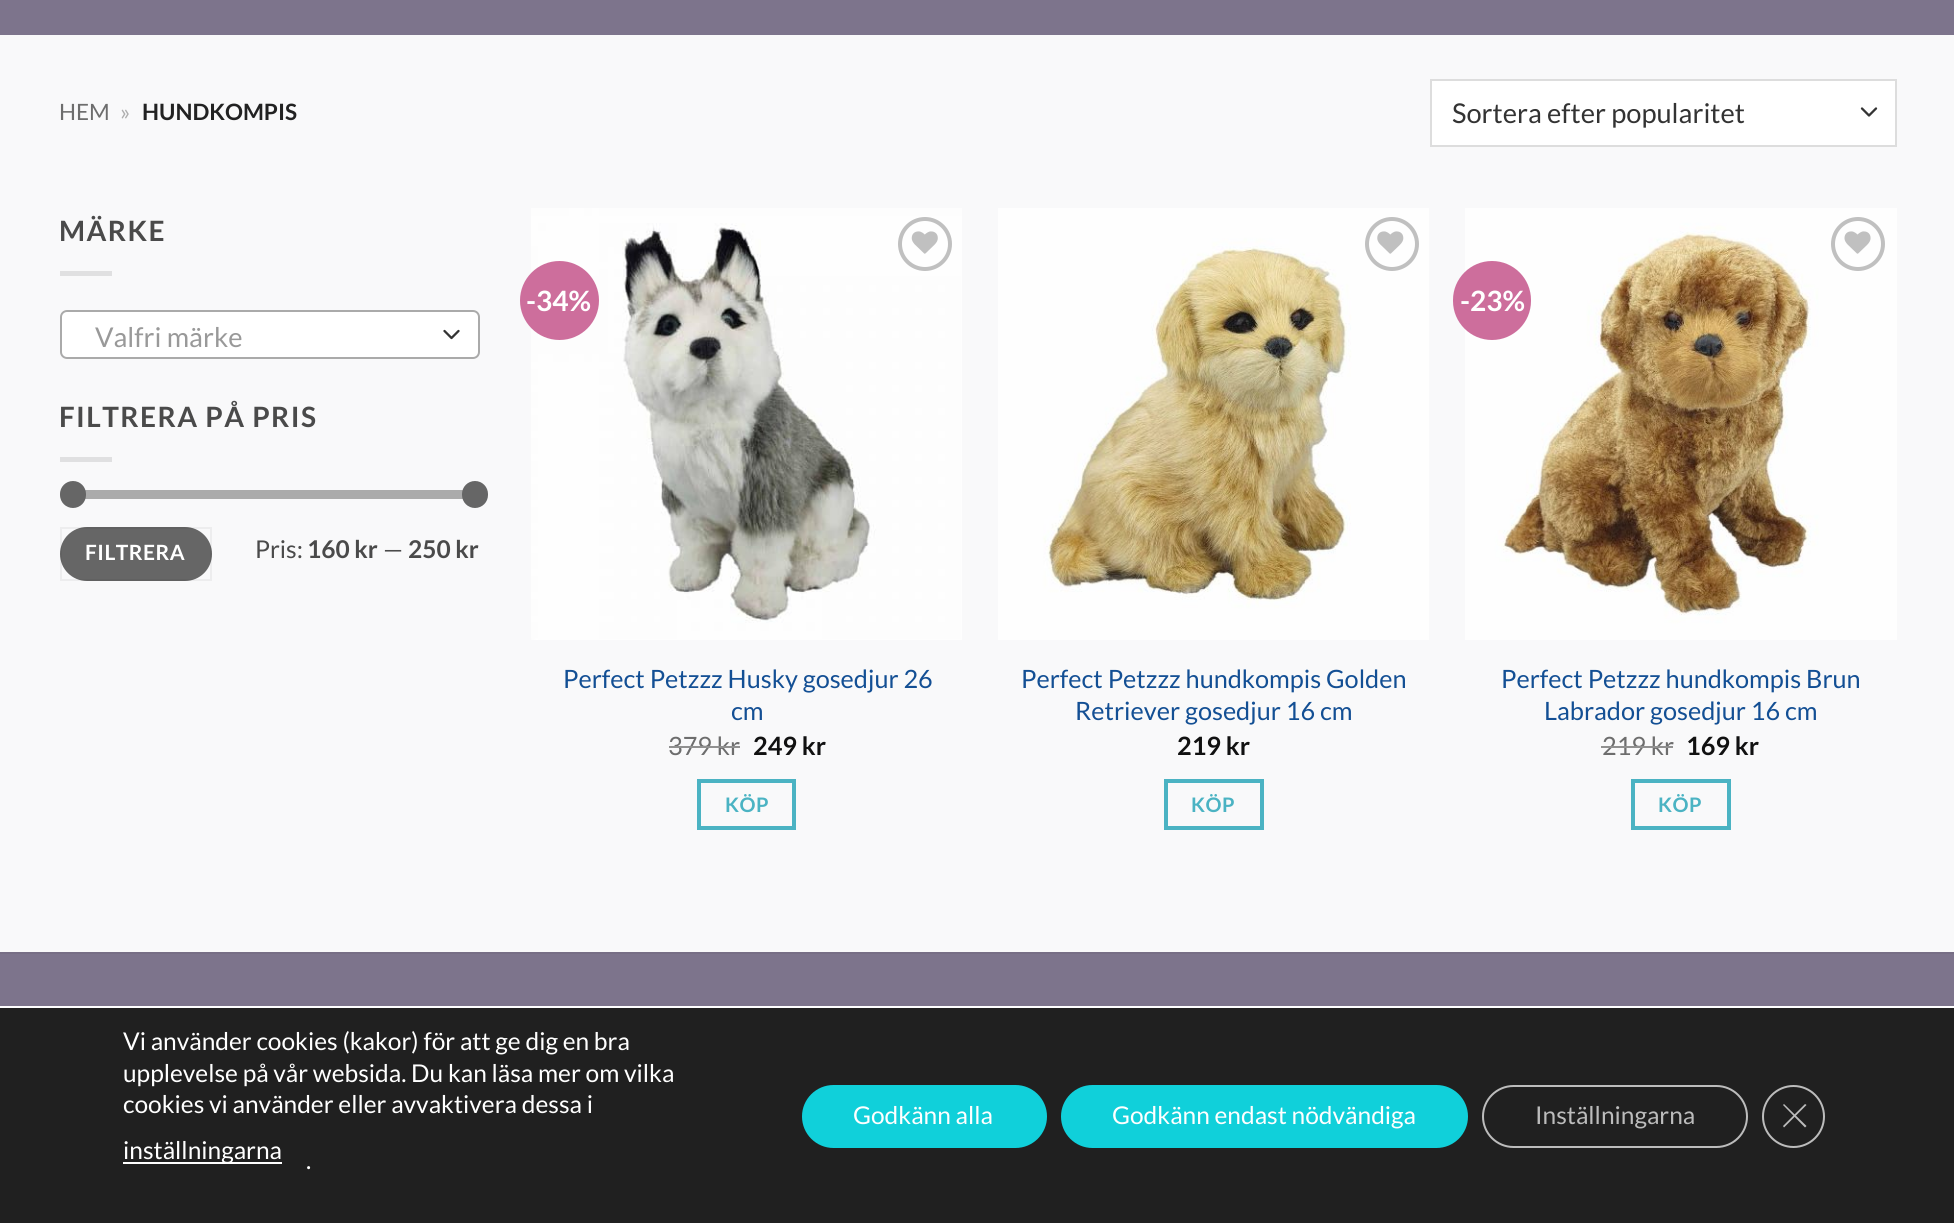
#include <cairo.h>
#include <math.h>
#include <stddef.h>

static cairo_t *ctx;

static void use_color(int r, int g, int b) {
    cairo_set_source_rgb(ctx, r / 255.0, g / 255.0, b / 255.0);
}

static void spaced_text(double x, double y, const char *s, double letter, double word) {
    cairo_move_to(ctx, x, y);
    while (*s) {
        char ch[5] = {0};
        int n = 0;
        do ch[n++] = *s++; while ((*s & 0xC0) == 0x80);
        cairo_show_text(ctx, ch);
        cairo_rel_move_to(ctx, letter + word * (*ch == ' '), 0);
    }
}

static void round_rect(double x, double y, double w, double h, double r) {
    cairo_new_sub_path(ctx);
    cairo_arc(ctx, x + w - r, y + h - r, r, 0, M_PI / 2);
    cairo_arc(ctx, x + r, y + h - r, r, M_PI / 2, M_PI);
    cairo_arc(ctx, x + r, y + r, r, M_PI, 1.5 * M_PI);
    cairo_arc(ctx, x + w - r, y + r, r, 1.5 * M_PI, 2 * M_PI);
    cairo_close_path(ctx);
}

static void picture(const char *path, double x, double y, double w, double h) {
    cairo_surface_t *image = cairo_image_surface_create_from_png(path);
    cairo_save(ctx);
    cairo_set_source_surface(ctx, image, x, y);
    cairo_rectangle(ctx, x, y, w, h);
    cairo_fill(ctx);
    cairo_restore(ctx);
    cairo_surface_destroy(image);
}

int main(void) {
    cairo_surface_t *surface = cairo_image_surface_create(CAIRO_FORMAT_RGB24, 1954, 1223);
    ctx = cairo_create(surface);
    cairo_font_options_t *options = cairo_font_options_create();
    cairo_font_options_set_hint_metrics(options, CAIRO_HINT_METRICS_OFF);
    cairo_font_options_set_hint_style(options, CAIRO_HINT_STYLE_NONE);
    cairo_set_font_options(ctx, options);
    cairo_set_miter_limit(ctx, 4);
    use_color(249, 249, 250);
    cairo_paint(ctx);
    use_color(125, 116, 140);
    cairo_rectangle(ctx, 0, 0, 1954, 35);
    cairo_fill(ctx);
    cairo_select_font_face(ctx, "Lato", CAIRO_FONT_SLANT_NORMAL, CAIRO_FONT_WEIGHT_NORMAL);
    cairo_set_font_size(ctx, 22.5);
    use_color(109, 109, 109);
    cairo_move_to(ctx, 59, 120);
    cairo_show_text(ctx, "HEM");
    use_color(174, 174, 174);
    cairo_move_to(ctx, 120, 120);
    cairo_show_text(ctx, "»");
    cairo_select_font_face(ctx, "Lato", CAIRO_FONT_SLANT_NORMAL, CAIRO_FONT_WEIGHT_BOLD);
    use_color(34, 34, 34);
    cairo_move_to(ctx, 142, 120);
    cairo_show_text(ctx, "HUNDKOMPIS");
    use_color(255, 255, 255);
    cairo_rectangle(ctx, 1432, 81, 463, 64);
    cairo_fill(ctx);
    cairo_new_path(ctx);
    cairo_move_to(ctx, 1862, 108.5);
    cairo_line_to(ctx, 1869, 115.5);
    cairo_line_to(ctx, 1876, 108.5);
    use_color(51, 51, 51);
    cairo_set_line_width(ctx, 2.3);
    cairo_set_line_cap(ctx, CAIRO_LINE_CAP_ROUND);
    cairo_set_line_join(ctx, CAIRO_LINE_JOIN_ROUND);
    cairo_stroke(ctx);
    cairo_rectangle(ctx, 1431, 80, 465, 66);
    use_color(221, 221, 221);
    cairo_set_line_width(ctx, 2);
    cairo_set_line_cap(ctx, CAIRO_LINE_CAP_BUTT);
    cairo_set_line_join(ctx, CAIRO_LINE_JOIN_MITER);
    cairo_stroke(ctx);
    cairo_select_font_face(ctx, "Lato", CAIRO_FONT_SLANT_NORMAL, CAIRO_FONT_WEIGHT_NORMAL);
    cairo_set_font_size(ctx, 27.25);
    use_color(51, 51, 51);
    cairo_move_to(ctx, 1452, 123);
    cairo_show_text(ctx, "Sortera efter popularitet");
    cairo_select_font_face(ctx, "Lato", CAIRO_FONT_SLANT_NORMAL, CAIRO_FONT_WEIGHT_BOLD);
    cairo_set_font_size(ctx, 28);
    use_color(74, 74, 74);
    spaced_text(59, 241, "MÄRKE", 1.4, 0);
    use_color(224, 224, 225);
    cairo_rectangle(ctx, 60, 271, 52, 5);
    cairo_fill(ctx);
    use_color(255, 255, 255);
    round_rect(60, 310, 420, 49, 7);
    cairo_fill(ctx);
    cairo_new_path(ctx);
    cairo_move_to(ctx, 444.5, 331);
    cairo_line_to(ctx, 451.5, 338);
    cairo_line_to(ctx, 458.5, 331);
    use_color(51, 51, 51);
    cairo_set_line_width(ctx, 2.3);
    cairo_set_line_cap(ctx, CAIRO_LINE_CAP_ROUND);
    cairo_set_line_join(ctx, CAIRO_LINE_JOIN_ROUND);
    cairo_stroke(ctx);
    round_rect(61, 311, 418, 47, 6);
    use_color(170, 170, 170);
    cairo_set_line_width(ctx, 2);
    cairo_set_line_cap(ctx, CAIRO_LINE_CAP_BUTT);
    cairo_set_line_join(ctx, CAIRO_LINE_JOIN_MITER);
    cairo_stroke(ctx);
    cairo_select_font_face(ctx, "Lato", CAIRO_FONT_SLANT_NORMAL, CAIRO_FONT_WEIGHT_NORMAL);
    cairo_set_font_size(ctx, 27.25);
    use_color(153, 153, 153);
    cairo_move_to(ctx, 95, 347);
    cairo_show_text(ctx, "Valfri märke");
    cairo_select_font_face(ctx, "Lato", CAIRO_FONT_SLANT_NORMAL, CAIRO_FONT_WEIGHT_BOLD);
    cairo_set_font_size(ctx, 28);
    use_color(74, 74, 74);
    spaced_text(59, 427, "FILTRERA PÅ PRIS", 1.4, 0);
    use_color(224, 224, 225);
    cairo_rectangle(ctx, 60, 457, 52, 5);
    cairo_fill(ctx);
    use_color(241, 241, 241);
    round_rect(60, 490, 420, 9, 4.5);
    cairo_fill(ctx);
    cairo_set_source_rgba(ctx, 0.4, 0.4, 0.4, 0.5);
    round_rect(60, 490, 420, 9, 4.5);
    cairo_fill(ctx);
    use_color(102, 102, 102);
    round_rect(60, 481, 26, 27, 13);
    cairo_fill(ctx);
    round_rect(462, 481, 26, 27, 13);
    cairo_fill(ctx);
    round_rect(60, 527, 152, 54, 27);
    cairo_fill(ctx);
    cairo_rectangle(ctx, 61, 528, 150, 52);
    cairo_set_source_rgba(ctx, 0, 0, 0, 0.05);
    cairo_stroke(ctx);
    cairo_set_font_size(ctx, 21);
    use_color(255, 255, 255);
    spaced_text(85, 560, "FILTRERA", 0.5, 0);
    cairo_select_font_face(ctx, "Lato", CAIRO_FONT_SLANT_NORMAL, CAIRO_FONT_WEIGHT_NORMAL);
    cairo_set_font_size(ctx, 24.5);
    use_color(74, 74, 74);
    cairo_move_to(ctx, 255, 558);
    cairo_show_text(ctx, "Pris:");
    cairo_select_font_face(ctx, "Lato", CAIRO_FONT_SLANT_NORMAL, CAIRO_FONT_WEIGHT_BOLD);
    cairo_move_to(ctx, 307, 558);
    cairo_show_text(ctx, "160 kr");
    cairo_select_font_face(ctx, "Lato", CAIRO_FONT_SLANT_NORMAL, CAIRO_FONT_WEIGHT_NORMAL);
    cairo_move_to(ctx, 383, 558);
    cairo_show_text(ctx, "—");
    cairo_select_font_face(ctx, "Lato", CAIRO_FONT_SLANT_NORMAL, CAIRO_FONT_WEIGHT_BOLD);
    cairo_move_to(ctx, 408, 558);
    cairo_show_text(ctx, "250 kr");
    picture("img1.png", 531, 208, 431, 432);
    use_color(205, 110, 156);
    cairo_arc(ctx, 559.5, 300.5, 39.5, 0, 2 * M_PI);
    cairo_fill(ctx);
    cairo_set_font_size(ctx, 28);
    use_color(255, 255, 255);
    cairo_move_to(ctx, 526, 311);
    cairo_show_text(ctx, "-34%");
    cairo_new_path(ctx);
    cairo_arc(ctx, 925, 244, 25, 0, 2 * M_PI);
    use_color(192, 192, 192);
    cairo_set_line_width(ctx, 4);
    cairo_stroke(ctx);
    picture("img2.png", 911, 231, 27, 23);
    cairo_select_font_face(ctx, "Lato", CAIRO_FONT_SLANT_NORMAL, CAIRO_FONT_WEIGHT_NORMAL);
    cairo_set_font_size(ctx, 25.25);
    use_color(19, 79, 148);
    cairo_move_to(ctx, 563, 688);
    cairo_show_text(ctx, "Perfect Petzzz Husky gosedjur 26");
    cairo_move_to(ctx, 731, 720);
    cairo_show_text(ctx, "cm");
    use_color(109, 109, 109);
    cairo_move_to(ctx, 668, 755);
    cairo_show_text(ctx, "379 kr");
    use_color(144, 144, 144);
    cairo_rectangle(ctx, 669, 746, 71, 2);
    cairo_fill(ctx);
    cairo_select_font_face(ctx, "Lato", CAIRO_FONT_SLANT_NORMAL, CAIRO_FONT_WEIGHT_BOLD);
    use_color(17, 17, 17);
    cairo_move_to(ctx, 753, 755);
    cairo_show_text(ctx, "249 kr");
    cairo_rectangle(ctx, 699, 781, 95, 47);
    use_color(75, 179, 195);
    cairo_stroke(ctx);
    cairo_set_font_size(ctx, 20);
    spaced_text(725, 812, "KÖP", 0.5, 0);
    picture("img3.png", 998, 208, 431, 432);
    cairo_arc(ctx, 1392, 244, 25, 0, 2 * M_PI);
    use_color(192, 192, 192);
    cairo_stroke(ctx);
    picture("img4.png", 1377, 231, 27, 23);
    cairo_select_font_face(ctx, "Lato", CAIRO_FONT_SLANT_NORMAL, CAIRO_FONT_WEIGHT_NORMAL);
    cairo_set_font_size(ctx, 25.25);
    use_color(19, 79, 148);
    cairo_move_to(ctx, 1021, 688);
    cairo_show_text(ctx, "Perfect Petzzz hundkompis Golden");
    cairo_move_to(ctx, 1075, 720);
    cairo_show_text(ctx, "Retriever gosedjur 16 cm");
    cairo_select_font_face(ctx, "Lato", CAIRO_FONT_SLANT_NORMAL, CAIRO_FONT_WEIGHT_BOLD);
    use_color(17, 17, 17);
    cairo_move_to(ctx, 1177, 755);
    cairo_show_text(ctx, "219 kr");
    cairo_rectangle(ctx, 1166, 781, 96, 47);
    use_color(75, 179, 195);
    cairo_stroke(ctx);
    cairo_set_font_size(ctx, 20);
    spaced_text(1191, 812, "KÖP", 0.5, 0);
    picture("img5.png", 1465, 208, 432, 432);
    use_color(205, 110, 156);
    round_rect(1453, 261, 78, 79, 39);
    cairo_fill(ctx);
    cairo_set_font_size(ctx, 28);
    use_color(255, 255, 255);
    cairo_move_to(ctx, 1460, 311);
    cairo_show_text(ctx, "-23%");
    cairo_new_path(ctx);
    cairo_arc(ctx, 1858, 244, 25, 0, 2 * M_PI);
    use_color(192, 192, 192);
    cairo_stroke(ctx);
    picture("img6.png", 1844, 231, 27, 23);
    cairo_select_font_face(ctx, "Lato", CAIRO_FONT_SLANT_NORMAL, CAIRO_FONT_WEIGHT_NORMAL);
    cairo_set_font_size(ctx, 25.25);
    use_color(19, 79, 148);
    cairo_move_to(ctx, 1501, 688);
    cairo_show_text(ctx, "Perfect Petzzz hundkompis Brun");
    cairo_move_to(ctx, 1544, 720);
    cairo_show_text(ctx, "Labrador gosedjur 16 cm");
    use_color(109, 109, 109);
    cairo_move_to(ctx, 1602, 755);
    cairo_show_text(ctx, "219 kr");
    use_color(144, 144, 144);
    cairo_rectangle(ctx, 1601, 746, 72, 2);
    cairo_fill(ctx);
    cairo_select_font_face(ctx, "Lato", CAIRO_FONT_SLANT_NORMAL, CAIRO_FONT_WEIGHT_BOLD);
    use_color(17, 17, 17);
    cairo_move_to(ctx, 1686, 755);
    cairo_show_text(ctx, "169 kr");
    cairo_rectangle(ctx, 1633, 781, 96, 47);
    use_color(75, 179, 195);
    cairo_stroke(ctx);
    cairo_set_font_size(ctx, 20);
    spaced_text(1658, 812, "KÖP", 0.5, 0);
    use_color(125, 116, 140);
    cairo_rectangle(ctx, 0, 954, 1954, 52);
    cairo_fill(ctx);
    use_color(119, 110, 133);
    cairo_rectangle(ctx, 0, 952, 1954, 2);
    cairo_fill(ctx);
    use_color(32, 32, 32);
    cairo_rectangle(ctx, 0, 1008, 1954, 215);
    cairo_fill(ctx);
    use_color(255, 255, 255);
    cairo_rectangle(ctx, 0, 1006, 1954, 2);
    cairo_fill(ctx);
    cairo_select_font_face(ctx, "Lato", CAIRO_FONT_SLANT_NORMAL, CAIRO_FONT_WEIGHT_NORMAL);
    cairo_set_font_size(ctx, 24.5);
    cairo_move_to(ctx, 123, 1050);
    cairo_show_text(ctx, "Vi använder cookies (kakor) för att ge dig en bra");
    cairo_move_to(ctx, 123, 1082);
    cairo_show_text(ctx, "upplevelse på vår websida. Du kan läsa mer om vilka");
    cairo_move_to(ctx, 123, 1113);
    cairo_show_text(ctx, "cookies vi använder eller avvaktivera dessa i");
    cairo_rectangle(ctx, 123, 1162, 159, 2);
    cairo_fill(ctx);
    cairo_move_to(ctx, 123, 1159);
    cairo_show_text(ctx, "inställningarna");
    cairo_move_to(ctx, 306, 1169);
    cairo_show_text(ctx, ".");
    use_color(16, 208, 218);
    round_rect(802, 1085, 245, 63, 31.5);
    cairo_fill(ctx);
    use_color(255, 255, 255);
    cairo_move_to(ctx, 853, 1124);
    cairo_show_text(ctx, "Godkänn alla");
    use_color(16, 208, 218);
    round_rect(1061, 1085, 407, 63, 31.5);
    cairo_fill(ctx);
    use_color(255, 255, 255);
    cairo_move_to(ctx, 1112, 1124);
    cairo_show_text(ctx, "Godkänn endast nödvändiga");
    round_rect(1483, 1086, 264, 61, 30.5);
    use_color(188, 188, 188);
    cairo_set_line_width(ctx, 2);
    cairo_stroke(ctx);
    cairo_move_to(ctx, 1535, 1124);
    cairo_show_text(ctx, "Inställningarna");
    cairo_new_path(ctx);
    cairo_arc(ctx, 1793.5, 1116.5, 30.5, 0, 2 * M_PI);
    cairo_stroke(ctx);
    cairo_new_path(ctx);
    cairo_move_to(ctx, 1805, 1104);
    cairo_line_to(ctx, 1806.5, 1105);
    cairo_line_to(ctx, 1784, 1127.5);
    cairo_line_to(ctx, 1783, 1126);
    cairo_close_path(ctx);
    cairo_fill(ctx);
    cairo_new_path(ctx);
    cairo_move_to(ctx, 1783, 1105);
    cairo_line_to(ctx, 1784, 1104);
    cairo_line_to(ctx, 1806.5, 1126);
    cairo_line_to(ctx, 1805, 1127.5);
    cairo_close_path(ctx);
    cairo_fill(ctx);
    cairo_surface_write_to_png(surface, "result.png");
    cairo_font_options_destroy(options);
    cairo_destroy(ctx);
    cairo_surface_destroy(surface);
    return 0;
}
